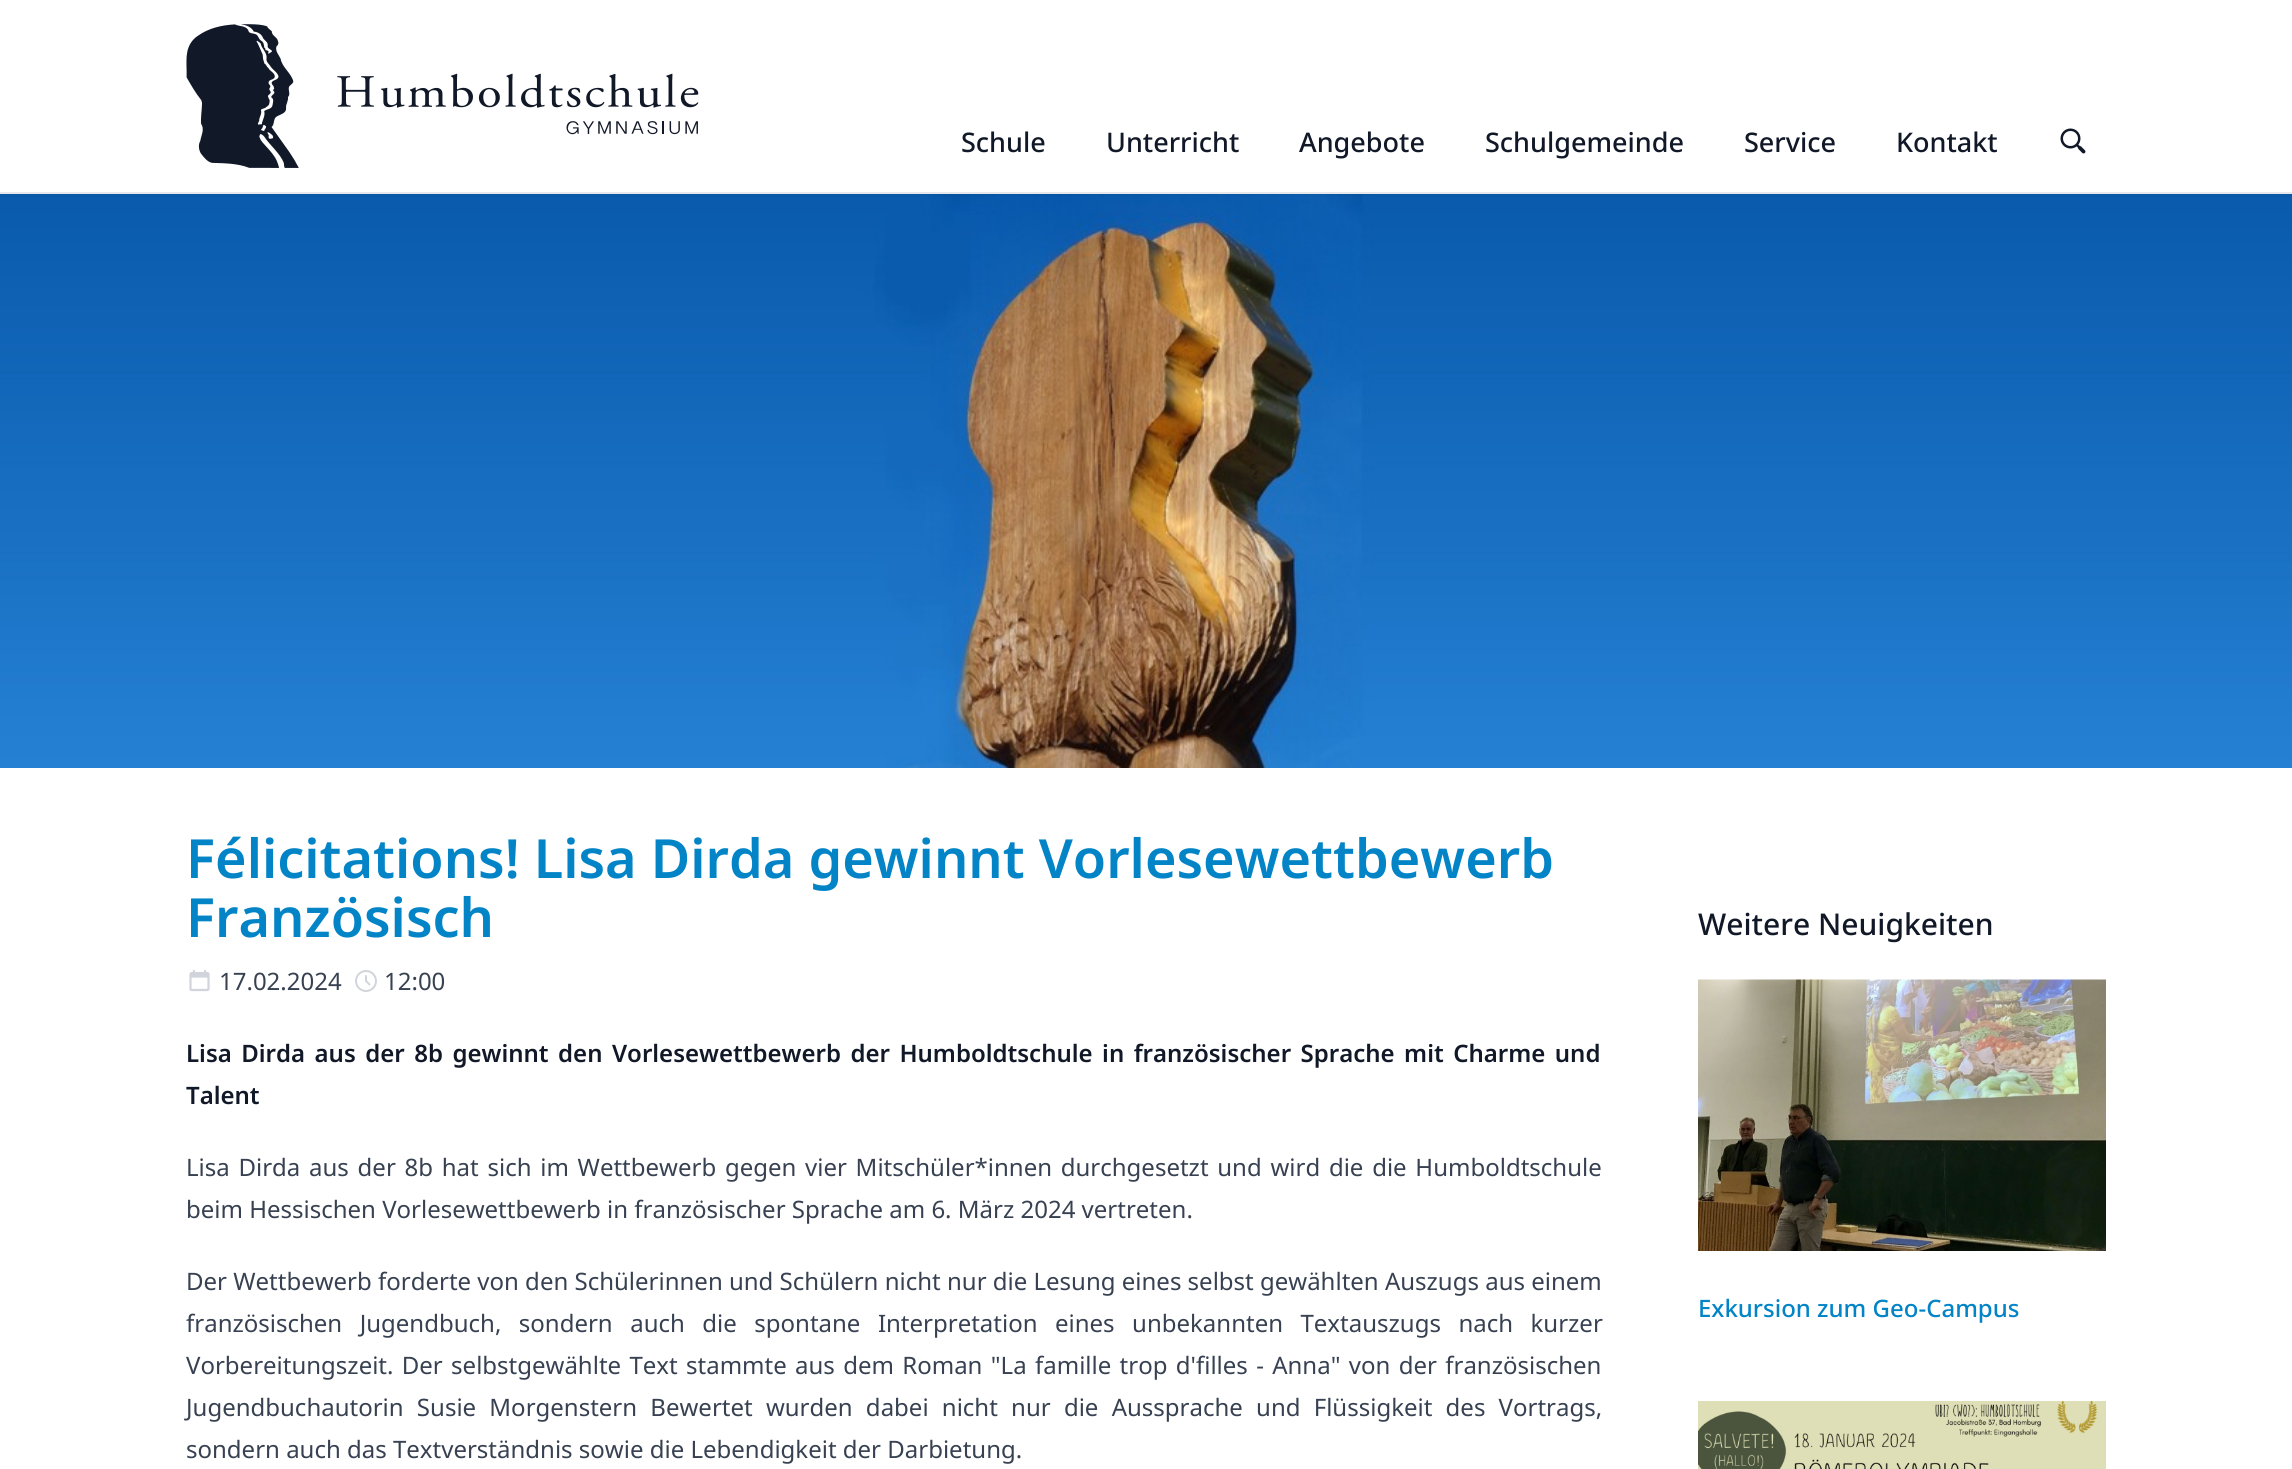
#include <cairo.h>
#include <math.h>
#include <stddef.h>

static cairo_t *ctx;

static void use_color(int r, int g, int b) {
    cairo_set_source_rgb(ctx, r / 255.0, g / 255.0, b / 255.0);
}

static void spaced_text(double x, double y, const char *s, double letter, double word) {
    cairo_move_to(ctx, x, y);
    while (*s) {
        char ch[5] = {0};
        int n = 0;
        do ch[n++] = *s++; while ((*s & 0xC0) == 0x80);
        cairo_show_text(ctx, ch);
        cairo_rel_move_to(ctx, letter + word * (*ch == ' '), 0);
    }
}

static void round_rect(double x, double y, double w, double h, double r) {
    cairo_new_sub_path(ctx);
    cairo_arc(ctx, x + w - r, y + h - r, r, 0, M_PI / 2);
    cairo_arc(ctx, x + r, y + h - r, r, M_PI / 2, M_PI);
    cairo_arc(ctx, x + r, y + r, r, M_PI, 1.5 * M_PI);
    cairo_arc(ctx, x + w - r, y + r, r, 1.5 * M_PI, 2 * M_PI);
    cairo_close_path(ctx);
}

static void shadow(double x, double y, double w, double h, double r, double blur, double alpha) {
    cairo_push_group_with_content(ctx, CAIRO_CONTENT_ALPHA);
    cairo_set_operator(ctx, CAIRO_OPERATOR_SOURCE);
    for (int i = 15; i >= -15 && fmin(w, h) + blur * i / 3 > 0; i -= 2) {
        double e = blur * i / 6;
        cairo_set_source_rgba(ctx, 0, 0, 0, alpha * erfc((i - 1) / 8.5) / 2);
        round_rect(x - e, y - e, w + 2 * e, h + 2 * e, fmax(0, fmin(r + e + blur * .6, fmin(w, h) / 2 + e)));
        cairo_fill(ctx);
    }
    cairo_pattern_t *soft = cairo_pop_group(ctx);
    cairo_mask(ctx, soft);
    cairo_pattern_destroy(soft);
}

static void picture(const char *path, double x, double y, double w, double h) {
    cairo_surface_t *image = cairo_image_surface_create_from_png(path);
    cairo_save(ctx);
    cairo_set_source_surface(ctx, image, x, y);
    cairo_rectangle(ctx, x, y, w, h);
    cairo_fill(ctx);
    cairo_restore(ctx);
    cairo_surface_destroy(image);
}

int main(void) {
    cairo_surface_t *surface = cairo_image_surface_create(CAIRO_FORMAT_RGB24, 2292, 1469);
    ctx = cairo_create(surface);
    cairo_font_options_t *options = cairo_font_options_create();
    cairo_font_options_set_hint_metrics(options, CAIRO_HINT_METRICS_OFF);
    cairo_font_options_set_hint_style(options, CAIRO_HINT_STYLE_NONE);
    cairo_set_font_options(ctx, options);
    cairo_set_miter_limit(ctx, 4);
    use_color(255, 255, 255);
    cairo_paint(ctx);
    picture("img3.png", 0, 194, 2292, 574);
    use_color(0, 0, 0);
    shadow(0, 2, 2292, 192, 0, 2, 0.1);
    cairo_rectangle(ctx, 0, 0, 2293, 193);
    use_color(229, 231, 235);
    cairo_stroke(ctx);
    use_color(255, 255, 255);
    cairo_rectangle(ctx, 0, 0, 2292, 192);
    cairo_fill(ctx);
    picture("img1.png", 186, 24, 513, 144);
    cairo_select_font_face(ctx, "Noto Sans Medium", CAIRO_FONT_SLANT_NORMAL, CAIRO_FONT_WEIGHT_NORMAL);
    cairo_set_font_size(ctx, 27);
    use_color(17, 24, 39);
    cairo_move_to(ctx, 961, 152);
    cairo_show_text(ctx, "Schule");
    cairo_move_to(ctx, 1106, 152);
    cairo_show_text(ctx, "Unterricht");
    cairo_move_to(ctx, 1299, 152);
    cairo_show_text(ctx, "Angebote");
    cairo_move_to(ctx, 1485, 152);
    cairo_show_text(ctx, "Schulgemeinde");
    cairo_move_to(ctx, 1744, 152);
    cairo_show_text(ctx, "Service");
    cairo_move_to(ctx, 1896, 152);
    cairo_show_text(ctx, "Kontakt");
    picture("img2.png", 2060, 128, 26, 26);
    cairo_select_font_face(ctx, "Noto Sans SemiBold", CAIRO_FONT_SLANT_NORMAL, CAIRO_FONT_WEIGHT_NORMAL);
    cairo_set_font_size(ctx, 54);
    use_color(2, 132, 199);
    cairo_move_to(ctx, 186, 878);
    cairo_show_text(ctx, "Félicitations! Lisa Dirda gewinnt Vorlesewettbewerb");
    cairo_move_to(ctx, 186, 937);
    cairo_show_text(ctx, "Französisch");
    picture("img4.png", 189, 969, 21, 23);
    cairo_select_font_face(ctx, "Noto Sans", CAIRO_FONT_SLANT_NORMAL, CAIRO_FONT_WEIGHT_NORMAL);
    cairo_set_font_size(ctx, 24);
    use_color(55, 65, 81);
    cairo_move_to(ctx, 219, 990);
    cairo_show_text(ctx, "17.02.2024");
    picture("img5.png", 355, 970, 22, 22);
    cairo_move_to(ctx, 384, 990);
    cairo_show_text(ctx, "12:00");
    cairo_select_font_face(ctx, "Noto Sans SemiBold", CAIRO_FONT_SLANT_NORMAL, CAIRO_FONT_WEIGHT_NORMAL);
    use_color(17, 24, 39);
    spaced_text(186, 1062, "Lisa Dirda aus der 8b gewinnt den Vorlesewettbewerb der Humboldtschule in französischer Sprache mit Charme und", 0, 3.25);
    cairo_move_to(ctx, 186, 1104);
    cairo_show_text(ctx, "Talent");
    cairo_select_font_face(ctx, "Noto Sans", CAIRO_FONT_SLANT_NORMAL, CAIRO_FONT_WEIGHT_NORMAL);
    use_color(55, 65, 81);
    spaced_text(186, 1176, "Lisa Dirda aus der 8b hat sich im Wettbewerb gegen vier Mitschüler*innen durchgesetzt und wird die die Humboldtschule", 0, 2.5);
    cairo_move_to(ctx, 186, 1218);
    cairo_show_text(ctx, "beim Hessischen Vorlesewettbewerb in französischer Sprache am 6. März 2024 vertreten.");
    cairo_move_to(ctx, 186, 1290);
    cairo_show_text(ctx, "Der Wettbewerb forderte von den Schülerinnen und Schülern nicht nur die Lesung eines selbst gewählten Auszugs aus einem");
    spaced_text(186, 1332, "französischen Jugendbuch, sondern auch die spontane Interpretation eines unbekannten Textauszugs nach kurzer", 0, 11.25);
    spaced_text(186, 1374, "Vorbereitungszeit. Der selbstgewählte Text stammte aus dem Roman \"La famille trop d'filles - Anna\" von der französischen", 0, 2.1);
    spaced_text(186, 1416, "Jugendbuchautorin Susie Morgenstern Bewertet wurden dabei nicht nur die Aussprache und Flüssigkeit des Vortrags,", 0, 7);
    cairo_move_to(ctx, 186, 1458);
    cairo_show_text(ctx, "sondern auch das Textverständnis sowie die Lebendigkeit der Darbietung.");
    cairo_select_font_face(ctx, "Noto Sans Medium", CAIRO_FONT_SLANT_NORMAL, CAIRO_FONT_WEIGHT_NORMAL);
    cairo_set_font_size(ctx, 30);
    use_color(17, 24, 39);
    cairo_move_to(ctx, 1698, 935);
    cairo_show_text(ctx, "Weitere Neuigkeiten");
    picture("img6.png", 1698, 979, 408, 272);
    cairo_set_font_size(ctx, 24);
    use_color(2, 132, 199);
    cairo_move_to(ctx, 1698, 1317);
    cairo_show_text(ctx, "Exkursion zum Geo-Campus");
    picture("img7.png", 1698, 1401, 408, 68);
    cairo_surface_write_to_png(surface, "result.png");
    cairo_font_options_destroy(options);
    cairo_destroy(ctx);
    cairo_surface_destroy(surface);
    return 0;
}
